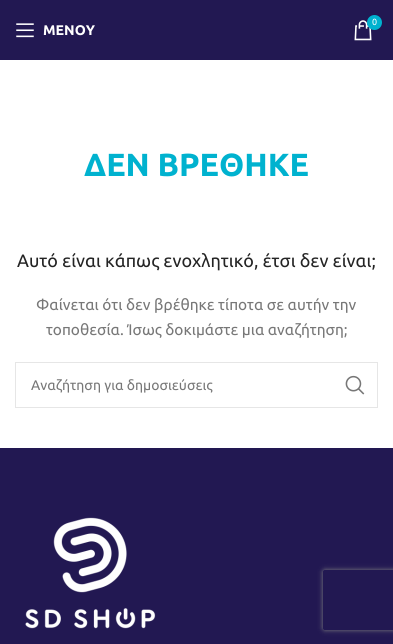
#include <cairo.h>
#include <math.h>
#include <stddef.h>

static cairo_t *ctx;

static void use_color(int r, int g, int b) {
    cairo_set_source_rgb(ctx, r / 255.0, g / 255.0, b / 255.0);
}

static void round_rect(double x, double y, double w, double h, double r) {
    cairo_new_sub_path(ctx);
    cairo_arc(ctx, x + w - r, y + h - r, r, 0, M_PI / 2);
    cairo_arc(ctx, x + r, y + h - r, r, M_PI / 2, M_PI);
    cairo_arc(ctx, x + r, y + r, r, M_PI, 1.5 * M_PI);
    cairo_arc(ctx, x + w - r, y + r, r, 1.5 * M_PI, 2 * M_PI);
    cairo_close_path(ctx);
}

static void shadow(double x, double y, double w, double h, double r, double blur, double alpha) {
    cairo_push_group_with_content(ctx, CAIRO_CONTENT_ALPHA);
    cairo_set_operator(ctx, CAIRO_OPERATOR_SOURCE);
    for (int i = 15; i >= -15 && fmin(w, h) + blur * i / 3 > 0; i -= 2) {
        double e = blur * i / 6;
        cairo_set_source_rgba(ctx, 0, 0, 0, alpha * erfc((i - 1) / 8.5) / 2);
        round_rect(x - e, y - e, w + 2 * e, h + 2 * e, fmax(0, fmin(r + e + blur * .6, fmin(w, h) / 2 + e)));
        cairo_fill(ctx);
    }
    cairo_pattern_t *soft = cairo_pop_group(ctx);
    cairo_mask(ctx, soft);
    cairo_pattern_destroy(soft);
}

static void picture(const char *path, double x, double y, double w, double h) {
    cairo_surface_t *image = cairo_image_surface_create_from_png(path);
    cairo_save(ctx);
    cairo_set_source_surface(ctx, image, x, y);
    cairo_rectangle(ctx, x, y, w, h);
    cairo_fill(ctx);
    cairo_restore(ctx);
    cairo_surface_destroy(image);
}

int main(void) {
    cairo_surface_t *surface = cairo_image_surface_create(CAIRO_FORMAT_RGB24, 393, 644);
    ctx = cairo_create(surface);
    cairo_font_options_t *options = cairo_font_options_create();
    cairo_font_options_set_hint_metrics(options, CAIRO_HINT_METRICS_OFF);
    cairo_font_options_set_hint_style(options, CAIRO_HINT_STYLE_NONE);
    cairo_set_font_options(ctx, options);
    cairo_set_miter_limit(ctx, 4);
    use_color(255, 255, 255);
    cairo_paint(ctx);
    use_color(34, 24, 82);
    cairo_rectangle(ctx, 0, 0, 393, 60);
    cairo_fill(ctx);
    picture("img1.png", 354, 20, 18, 21);
    use_color(0, 178, 207);
    cairo_arc(ctx, 374.5, 22.5, 7.5, 0, 2 * M_PI);
    cairo_fill(ctx);
    cairo_select_font_face(ctx, "Ubuntu", CAIRO_FONT_SLANT_NORMAL, CAIRO_FONT_WEIGHT_NORMAL);
    cairo_set_font_size(ctx, 9);
    use_color(255, 255, 255);
    cairo_move_to(ctx, 372, 25);
    cairo_show_text(ctx, "0");
    picture("img2.png", 16, 23, 18, 15);
    cairo_select_font_face(ctx, "Ubuntu", CAIRO_FONT_SLANT_NORMAL, CAIRO_FONT_WEIGHT_BOLD);
    cairo_set_font_size(ctx, 14);
    cairo_move_to(ctx, 43, 35);
    cairo_show_text(ctx, "ΜΕΝΟΥ");
    cairo_set_font_size(ctx, 32);
    use_color(0, 178, 207);
    cairo_move_to(ctx, 84, 176);
    cairo_show_text(ctx, "ΔΕΝ ΒΡΕΘΗΚΕ");
    cairo_select_font_face(ctx, "Ubuntu", CAIRO_FONT_SLANT_NORMAL, CAIRO_FONT_WEIGHT_NORMAL);
    cairo_set_font_size(ctx, 18);
    use_color(36, 36, 36);
    cairo_move_to(ctx, 17, 267);
    cairo_show_text(ctx, "Αυτό είναι κάπως ενοχλητικό, έτσι δεν είναι;");
    cairo_set_font_size(ctx, 15.4);
    use_color(119, 119, 119);
    cairo_move_to(ctx, 36, 310);
    cairo_show_text(ctx, "Φαίνεται ότι δεν βρέθηκε τίποτα σε αυτήν την");
    cairo_move_to(ctx, 46, 335);
    cairo_show_text(ctx, "τοποθεσία. Ίσως δοκιμάστε μια αναζήτηση;");
    cairo_rectangle(ctx, 15.5, 362.5, 362, 45);
    use_color(230, 230, 230);
    cairo_set_line_width(ctx, 1);
    cairo_stroke(ctx);
    cairo_set_font_size(ctx, 14);
    use_color(119, 119, 119);
    cairo_move_to(ctx, 31, 390);
    cairo_show_text(ctx, "Αναζήτηση για δημοσιεύσεις");
    picture("img3.png", 345, 375, 20, 20);
    use_color(34, 24, 82);
    cairo_rectangle(ctx, 0, 448, 393, 196);
    cairo_fill(ctx);
    picture("img4.png", 25, 517, 131, 112);
    cairo_save(ctx);
    cairo_set_fill_rule(ctx, CAIRO_FILL_RULE_EVEN_ODD);
    cairo_new_path(ctx);
    cairo_move_to(ctx, 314, 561);
    cairo_line_to(ctx, 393, 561);
    cairo_line_to(ctx, 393, 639);
    cairo_line_to(ctx, 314, 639);
    cairo_close_path(ctx);
    cairo_move_to(ctx, 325, 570);
    cairo_line_to(ctx, 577, 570);
    cairo_curve_to(ctx, 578, 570, 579, 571, 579, 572);
    cairo_line_to(ctx, 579, 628);
    cairo_curve_to(ctx, 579, 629, 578, 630, 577, 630);
    cairo_line_to(ctx, 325, 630);
    cairo_curve_to(ctx, 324, 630, 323, 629, 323, 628);
    cairo_line_to(ctx, 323, 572);
    cairo_curve_to(ctx, 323, 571, 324, 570, 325, 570);
    cairo_close_path(ctx);
    cairo_clip(ctx);
    use_color(128, 128, 128);
    shadow(323, 570, 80, 60, 2, 2.5, 1);
    cairo_restore(ctx);
    round_rect(381, 592, 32, 40, 20);
    cairo_fill(ctx);
    cairo_surface_write_to_png(surface, "result.png");
    cairo_font_options_destroy(options);
    cairo_destroy(ctx);
    cairo_surface_destroy(surface);
    return 0;
}
